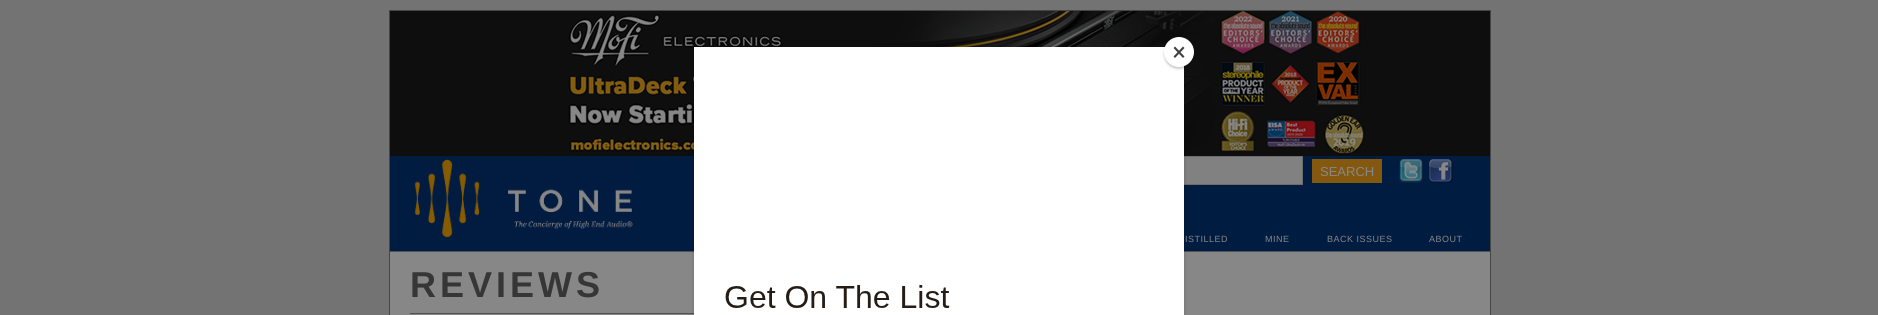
#include <cairo.h>
#include <math.h>
#include <stddef.h>

static cairo_t *ctx;

static void use_color(int r, int g, int b) {
    cairo_set_source_rgb(ctx, r / 255.0, g / 255.0, b / 255.0);
}

static void spaced_text(double x, double y, const char *s, double letter, double word) {
    cairo_move_to(ctx, x, y);
    while (*s) {
        char ch[5] = {0};
        int n = 0;
        do ch[n++] = *s++; while ((*s & 0xC0) == 0x80);
        cairo_show_text(ctx, ch);
        cairo_rel_move_to(ctx, letter + word * (*ch == ' '), 0);
    }
}

static void round_rect(double x, double y, double w, double h, double r) {
    cairo_new_sub_path(ctx);
    cairo_arc(ctx, x + w - r, y + h - r, r, 0, M_PI / 2);
    cairo_arc(ctx, x + r, y + h - r, r, M_PI / 2, M_PI);
    cairo_arc(ctx, x + r, y + r, r, M_PI, 1.5 * M_PI);
    cairo_arc(ctx, x + w - r, y + r, r, 1.5 * M_PI, 2 * M_PI);
    cairo_close_path(ctx);
}

static void shadow(double x, double y, double w, double h, double r, double blur, double alpha) {
    cairo_push_group_with_content(ctx, CAIRO_CONTENT_ALPHA);
    cairo_set_operator(ctx, CAIRO_OPERATOR_SOURCE);
    for (int i = 15; i >= -15 && fmin(w, h) + blur * i / 3 > 0; i -= 2) {
        double e = blur * i / 6;
        cairo_set_source_rgba(ctx, 0, 0, 0, alpha * erfc((i - 1) / 8.5) / 2);
        round_rect(x - e, y - e, w + 2 * e, h + 2 * e, fmax(0, fmin(r + e + blur * .6, fmin(w, h) / 2 + e)));
        cairo_fill(ctx);
    }
    cairo_pattern_t *soft = cairo_pop_group(ctx);
    cairo_mask(ctx, soft);
    cairo_pattern_destroy(soft);
}

static void picture(const char *path, double x, double y, double w, double h) {
    cairo_surface_t *image = cairo_image_surface_create_from_png(path);
    cairo_save(ctx);
    cairo_set_source_surface(ctx, image, x, y);
    cairo_rectangle(ctx, x, y, w, h);
    cairo_fill(ctx);
    cairo_restore(ctx);
    cairo_surface_destroy(image);
}

int main(void) {
    cairo_surface_t *surface = cairo_image_surface_create(CAIRO_FORMAT_RGB24, 1878, 315);
    ctx = cairo_create(surface);
    cairo_font_options_t *options = cairo_font_options_create();
    cairo_font_options_set_hint_metrics(options, CAIRO_HINT_METRICS_OFF);
    cairo_font_options_set_hint_style(options, CAIRO_HINT_STYLE_NONE);
    cairo_set_font_options(ctx, options);
    cairo_set_miter_limit(ctx, 4);
    use_color(115, 115, 115);
    cairo_paint(ctx);
    use_color(135, 135, 135);
    cairo_rectangle(ctx, 390, 252, 1100, 63);
    cairo_fill(ctx);
    cairo_rectangle(ctx, 389.5, 10.5, 1101, 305);
    use_color(69, 69, 70);
    cairo_set_line_width(ctx, 1);
    cairo_stroke(ctx);
    picture("img2.png", 390, 11, 1100, 145);
    use_color(1, 28, 65);
    cairo_rectangle(ctx, 390, 156, 1100, 95);
    cairo_fill(ctx);
    use_color(81, 81, 81);
    cairo_rectangle(ctx, 390, 251, 1100, 1);
    cairo_fill(ctx);
    use_color(129, 129, 129);
    cairo_rectangle(ctx, 1184, 157, 118, 27);
    cairo_fill(ctx);
    cairo_rectangle(ctx, 1156.5, 156.5, 146, 28);
    use_color(108, 108, 108);
    cairo_stroke(ctx);
    use_color(81, 81, 81);
    cairo_rectangle(ctx, 410, 313, 284, 1);
    cairo_fill(ctx);
    use_color(0, 0, 0);
    shadow(694, 49, 490, 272, 0, 2, 0.2);
    picture("img1.png", 694, 47, 490, 268);
    shadow(1164, 39, 30, 30, 15, 1, 0.2);
    use_color(255, 255, 255);
    cairo_arc(ctx, 1179, 52, 15, 0, 2 * M_PI);
    cairo_fill(ctx);
    use_color(65, 65, 65);
    cairo_new_path(ctx);
    cairo_move_to(ctx, 1183, 46.5);
    cairo_line_to(ctx, 1184.5, 48);
    cairo_line_to(ctx, 1175, 58);
    cairo_line_to(ctx, 1173.5, 56.5);
    cairo_close_path(ctx);
    cairo_fill(ctx);
    cairo_new_path(ctx);
    cairo_move_to(ctx, 1173.5, 48);
    cairo_line_to(ctx, 1175, 46.5);
    cairo_line_to(ctx, 1184.5, 56.5);
    cairo_line_to(ctx, 1183, 58);
    cairo_close_path(ctx);
    cairo_fill(ctx);
    picture("img3.png", 414, 159, 219, 79);
    use_color(132, 88, 14);
    cairo_rectangle(ctx, 1312, 159, 70, 24);
    cairo_fill(ctx);
    cairo_select_font_face(ctx, "Liberation Sans", CAIRO_FONT_SLANT_NORMAL, CAIRO_FONT_WEIGHT_NORMAL);
    cairo_set_font_size(ctx, 13);
    use_color(135, 135, 135);
    cairo_move_to(ctx, 1320, 176);
    cairo_show_text(ctx, "SEARCH");
    picture("img4.png", 1399, 159, 24, 24);
    picture("img5.png", 1429, 159, 24, 24);
    cairo_set_font_size(ctx, 9);
    spaced_text(1185, 242, "ISTILLED", 0.5, 0);
    spaced_text(1265, 242, "MINE", 0.5, 0);
    spaced_text(1327, 242, "BACK ISSUES", 0.5, 0);
    spaced_text(1429, 242, "ABOUT", 0.5, 0);
    cairo_select_font_face(ctx, "Liberation Sans", CAIRO_FONT_SLANT_NORMAL, CAIRO_FONT_WEIGHT_BOLD);
    cairo_set_font_size(ctx, 36);
    use_color(54, 54, 54);
    spaced_text(410, 297, "REVIEWS", 4, 0);
    cairo_surface_write_to_png(surface, "result.png");
    cairo_font_options_destroy(options);
    cairo_destroy(ctx);
    cairo_surface_destroy(surface);
    return 0;
}
